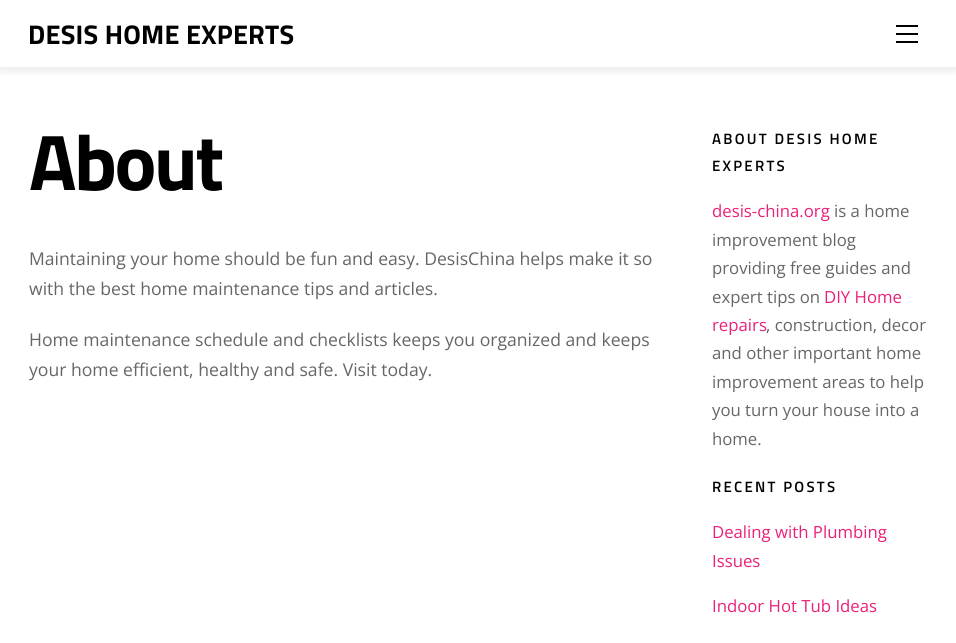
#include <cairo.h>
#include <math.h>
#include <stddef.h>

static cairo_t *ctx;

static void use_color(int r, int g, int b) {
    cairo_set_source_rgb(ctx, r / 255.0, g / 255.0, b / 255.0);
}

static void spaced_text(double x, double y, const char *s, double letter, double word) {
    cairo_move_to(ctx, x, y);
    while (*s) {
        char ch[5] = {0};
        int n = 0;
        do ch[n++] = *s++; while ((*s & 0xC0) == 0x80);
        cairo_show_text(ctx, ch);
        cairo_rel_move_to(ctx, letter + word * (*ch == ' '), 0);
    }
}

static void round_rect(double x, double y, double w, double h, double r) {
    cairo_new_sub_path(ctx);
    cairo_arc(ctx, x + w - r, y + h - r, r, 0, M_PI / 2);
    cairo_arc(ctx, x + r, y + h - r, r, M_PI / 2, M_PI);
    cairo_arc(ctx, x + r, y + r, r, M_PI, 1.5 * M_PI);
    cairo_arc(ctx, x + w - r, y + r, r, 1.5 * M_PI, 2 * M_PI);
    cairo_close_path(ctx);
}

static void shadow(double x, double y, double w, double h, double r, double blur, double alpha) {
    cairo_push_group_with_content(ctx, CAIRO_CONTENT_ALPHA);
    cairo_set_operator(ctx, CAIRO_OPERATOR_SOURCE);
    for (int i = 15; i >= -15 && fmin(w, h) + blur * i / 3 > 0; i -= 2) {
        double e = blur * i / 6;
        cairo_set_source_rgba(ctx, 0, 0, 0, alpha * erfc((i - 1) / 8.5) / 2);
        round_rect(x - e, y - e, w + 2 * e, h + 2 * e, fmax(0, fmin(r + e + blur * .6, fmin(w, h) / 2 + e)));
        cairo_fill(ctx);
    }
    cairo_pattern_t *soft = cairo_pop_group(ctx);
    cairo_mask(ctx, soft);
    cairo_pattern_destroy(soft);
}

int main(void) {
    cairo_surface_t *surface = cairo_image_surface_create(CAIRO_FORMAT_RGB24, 956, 643);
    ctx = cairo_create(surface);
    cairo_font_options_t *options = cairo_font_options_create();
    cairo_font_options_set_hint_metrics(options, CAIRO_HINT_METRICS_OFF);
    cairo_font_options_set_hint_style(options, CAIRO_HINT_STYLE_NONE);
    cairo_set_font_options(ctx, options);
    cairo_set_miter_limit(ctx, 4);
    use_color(255, 255, 255);
    cairo_paint(ctx);
    cairo_save(ctx);
    cairo_rectangle(ctx, 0, 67, 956, 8);
    cairo_clip(ctx);
    use_color(0, 0, 0);
    shadow(0, 1, 956, 67, 0, 7.5, 0.12);
    cairo_restore(ctx);
    cairo_select_font_face(ctx, "Titillium Web", CAIRO_FONT_SLANT_NORMAL, CAIRO_FONT_WEIGHT_BOLD);
    cairo_set_font_size(ctx, 27);
    use_color(0, 0, 0);
    spaced_text(28, 44, "DESIS HOME EXPERTS", 0.25, 0);
    cairo_rectangle(ctx, 896, 25, 22, 2);
    cairo_fill(ctx);
    cairo_rectangle(ctx, 896, 41, 22, 2);
    cairo_fill(ctx);
    cairo_rectangle(ctx, 896, 33, 22, 2);
    cairo_fill(ctx);
    cairo_set_font_size(ctx, 79);
    spaced_text(29, 190, "About", -2.5, 0);
    cairo_select_font_face(ctx, "Open Sans", CAIRO_FONT_SLANT_NORMAL, CAIRO_FONT_WEIGHT_NORMAL);
    cairo_set_font_size(ctx, 17.6);
    use_color(102, 102, 102);
    cairo_move_to(ctx, 29, 265);
    cairo_show_text(ctx, "Maintaining your home should be fun and easy. DesisChina helps make it so");
    cairo_move_to(ctx, 29, 295);
    cairo_show_text(ctx, "with the best home maintenance tips and articles.");
    cairo_move_to(ctx, 29, 346);
    cairo_show_text(ctx, "Home maintenance schedule and checklists keeps you organized and keeps");
    cairo_move_to(ctx, 29, 376);
    cairo_show_text(ctx, "your home efficient, healthy and safe. Visit today.");
    cairo_select_font_face(ctx, "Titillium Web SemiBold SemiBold", CAIRO_FONT_SLANT_NORMAL, CAIRO_FONT_WEIGHT_NORMAL);
    cairo_set_font_size(ctx, 15);
    use_color(0, 0, 0);
    spaced_text(712, 144, "ABOUT DESIS HOME", 2.25, 0);
    spaced_text(712, 171, "EXPERTS", 2.25, 0);
    cairo_select_font_face(ctx, "Open Sans", CAIRO_FONT_SLANT_NORMAL, CAIRO_FONT_WEIGHT_NORMAL);
    cairo_set_font_size(ctx, 16.75);
    use_color(234, 32, 121);
    cairo_move_to(ctx, 712, 217);
    cairo_show_text(ctx, "desis-china.org");
    use_color(102, 102, 102);
    cairo_move_to(ctx, 834, 217);
    cairo_show_text(ctx, "is a home");
    cairo_move_to(ctx, 712, 246);
    cairo_show_text(ctx, "improvement blog");
    cairo_move_to(ctx, 712, 274);
    cairo_show_text(ctx, "providing free guides and");
    cairo_move_to(ctx, 712, 303);
    cairo_show_text(ctx, "expert tips on");
    use_color(234, 32, 121);
    cairo_move_to(ctx, 824, 303);
    cairo_show_text(ctx, "DIY Home");
    cairo_move_to(ctx, 712, 331);
    cairo_show_text(ctx, "repairs");
    use_color(102, 102, 102);
    cairo_move_to(ctx, 766, 331);
    cairo_show_text(ctx, ", construction, decor");
    cairo_move_to(ctx, 712, 359);
    cairo_show_text(ctx, "and other important home");
    cairo_move_to(ctx, 712, 388);
    cairo_show_text(ctx, "improvement areas to help");
    cairo_move_to(ctx, 712, 416);
    cairo_show_text(ctx, "you turn your house into a");
    cairo_move_to(ctx, 712, 445);
    cairo_show_text(ctx, "home.");
    cairo_select_font_face(ctx, "Titillium Web SemiBold SemiBold", CAIRO_FONT_SLANT_NORMAL, CAIRO_FONT_WEIGHT_NORMAL);
    cairo_set_font_size(ctx, 15);
    use_color(0, 0, 0);
    spaced_text(712, 492, "RECENT POSTS", 2.25, 0);
    cairo_select_font_face(ctx, "Open Sans", CAIRO_FONT_SLANT_NORMAL, CAIRO_FONT_WEIGHT_NORMAL);
    cairo_set_font_size(ctx, 16.75);
    use_color(234, 32, 121);
    cairo_move_to(ctx, 712, 538);
    cairo_show_text(ctx, "Dealing with Plumbing");
    cairo_move_to(ctx, 712, 567);
    cairo_show_text(ctx, "Issues");
    cairo_move_to(ctx, 712, 612);
    cairo_show_text(ctx, "Indoor Hot Tub Ideas");
    cairo_surface_write_to_png(surface, "result.png");
    cairo_font_options_destroy(options);
    cairo_destroy(ctx);
    cairo_surface_destroy(surface);
    return 0;
}
